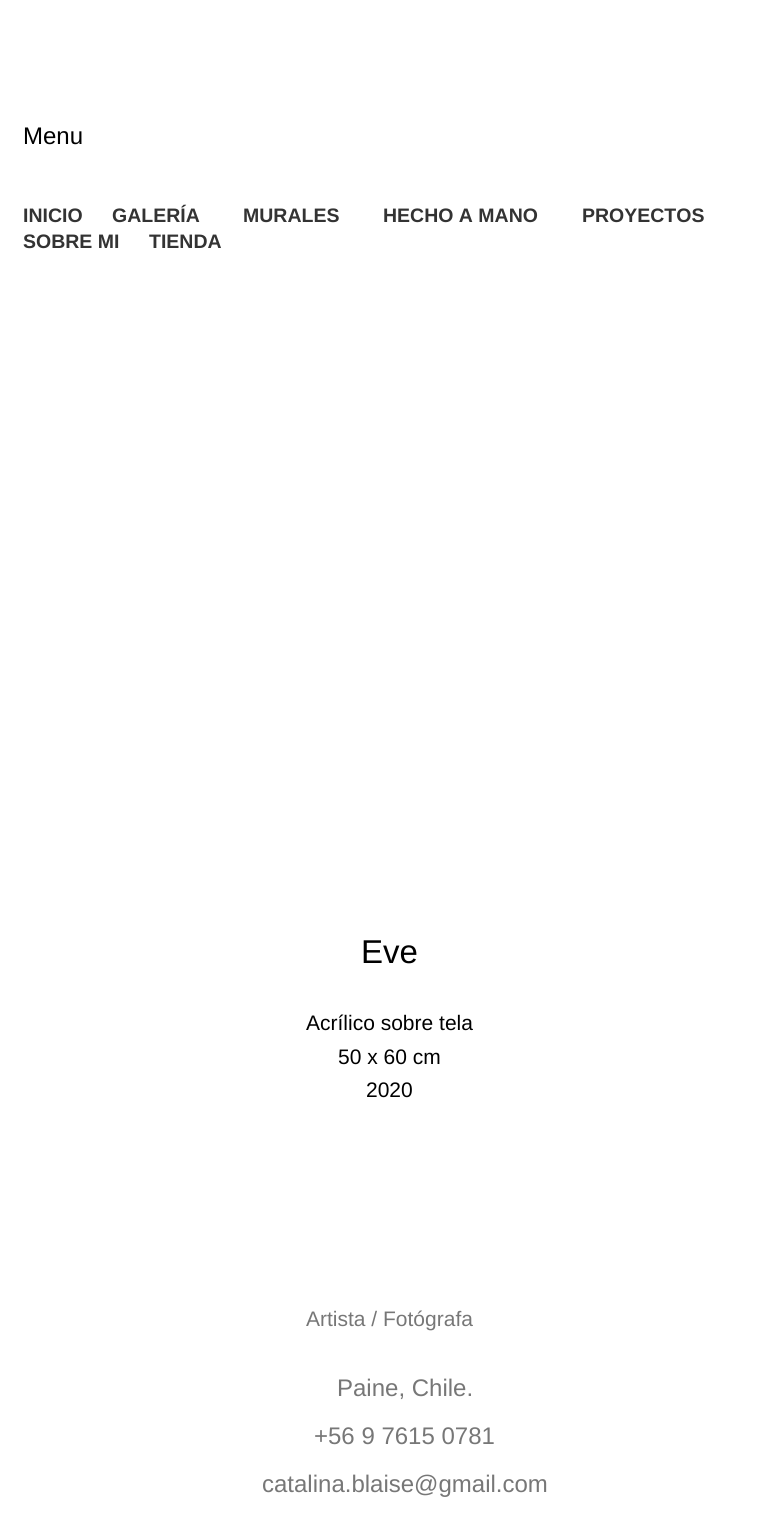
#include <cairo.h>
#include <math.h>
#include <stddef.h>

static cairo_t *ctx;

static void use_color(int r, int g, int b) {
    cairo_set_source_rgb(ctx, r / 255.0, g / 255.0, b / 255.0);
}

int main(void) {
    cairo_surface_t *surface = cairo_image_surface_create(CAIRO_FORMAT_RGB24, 778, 1536);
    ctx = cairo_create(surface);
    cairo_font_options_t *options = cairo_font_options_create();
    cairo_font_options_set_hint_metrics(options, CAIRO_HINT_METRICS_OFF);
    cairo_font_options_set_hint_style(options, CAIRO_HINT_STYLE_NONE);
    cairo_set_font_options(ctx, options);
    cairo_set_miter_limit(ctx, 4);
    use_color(255, 255, 255);
    cairo_paint(ctx);
    cairo_select_font_face(ctx, "Liberation Sans", CAIRO_FONT_SLANT_NORMAL, CAIRO_FONT_WEIGHT_NORMAL);
    cairo_set_font_size(ctx, 24);
    use_color(0, 0, 0);
    cairo_move_to(ctx, 23, 144);
    cairo_show_text(ctx, "Menu");
    cairo_select_font_face(ctx, "Liberation Sans", CAIRO_FONT_SLANT_NORMAL, CAIRO_FONT_WEIGHT_BOLD);
    cairo_set_font_size(ctx, 19.5);
    use_color(51, 51, 51);
    cairo_move_to(ctx, 23, 222);
    cairo_show_text(ctx, "INICIO");
    cairo_move_to(ctx, 112, 222);
    cairo_show_text(ctx, "GALERÍA");
    cairo_move_to(ctx, 243, 222);
    cairo_show_text(ctx, "MURALES");
    cairo_move_to(ctx, 383, 222);
    cairo_show_text(ctx, "HECHO A MANO");
    cairo_move_to(ctx, 582, 222);
    cairo_show_text(ctx, "PROYECTOS");
    cairo_move_to(ctx, 23, 248);
    cairo_show_text(ctx, "SOBRE MI");
    cairo_move_to(ctx, 149, 248);
    cairo_show_text(ctx, "TIENDA");
    cairo_select_font_face(ctx, "Liberation Sans", CAIRO_FONT_SLANT_NORMAL, CAIRO_FONT_WEIGHT_NORMAL);
    cairo_set_font_size(ctx, 33);
    use_color(0, 0, 0);
    cairo_move_to(ctx, 361, 963);
    cairo_show_text(ctx, "Eve");
    cairo_set_font_size(ctx, 21);
    cairo_move_to(ctx, 306, 1030);
    cairo_show_text(ctx, "Acrílico sobre tela");
    cairo_move_to(ctx, 338, 1064);
    cairo_show_text(ctx, "50 x 60 cm");
    cairo_move_to(ctx, 366, 1097);
    cairo_show_text(ctx, "2020");
    use_color(119, 119, 119);
    cairo_move_to(ctx, 306, 1326);
    cairo_show_text(ctx, "Artista / Fotógrafa");
    cairo_set_font_size(ctx, 24);
    cairo_move_to(ctx, 337, 1396);
    cairo_show_text(ctx, "Paine, Chile.");
    cairo_move_to(ctx, 314, 1444);
    cairo_show_text(ctx, "+56 9 7615 0781");
    cairo_move_to(ctx, 262, 1492);
    cairo_show_text(ctx, "catalina.blaise@gmail.com");
    cairo_surface_write_to_png(surface, "result.png");
    cairo_font_options_destroy(options);
    cairo_destroy(ctx);
    cairo_surface_destroy(surface);
    return 0;
}
